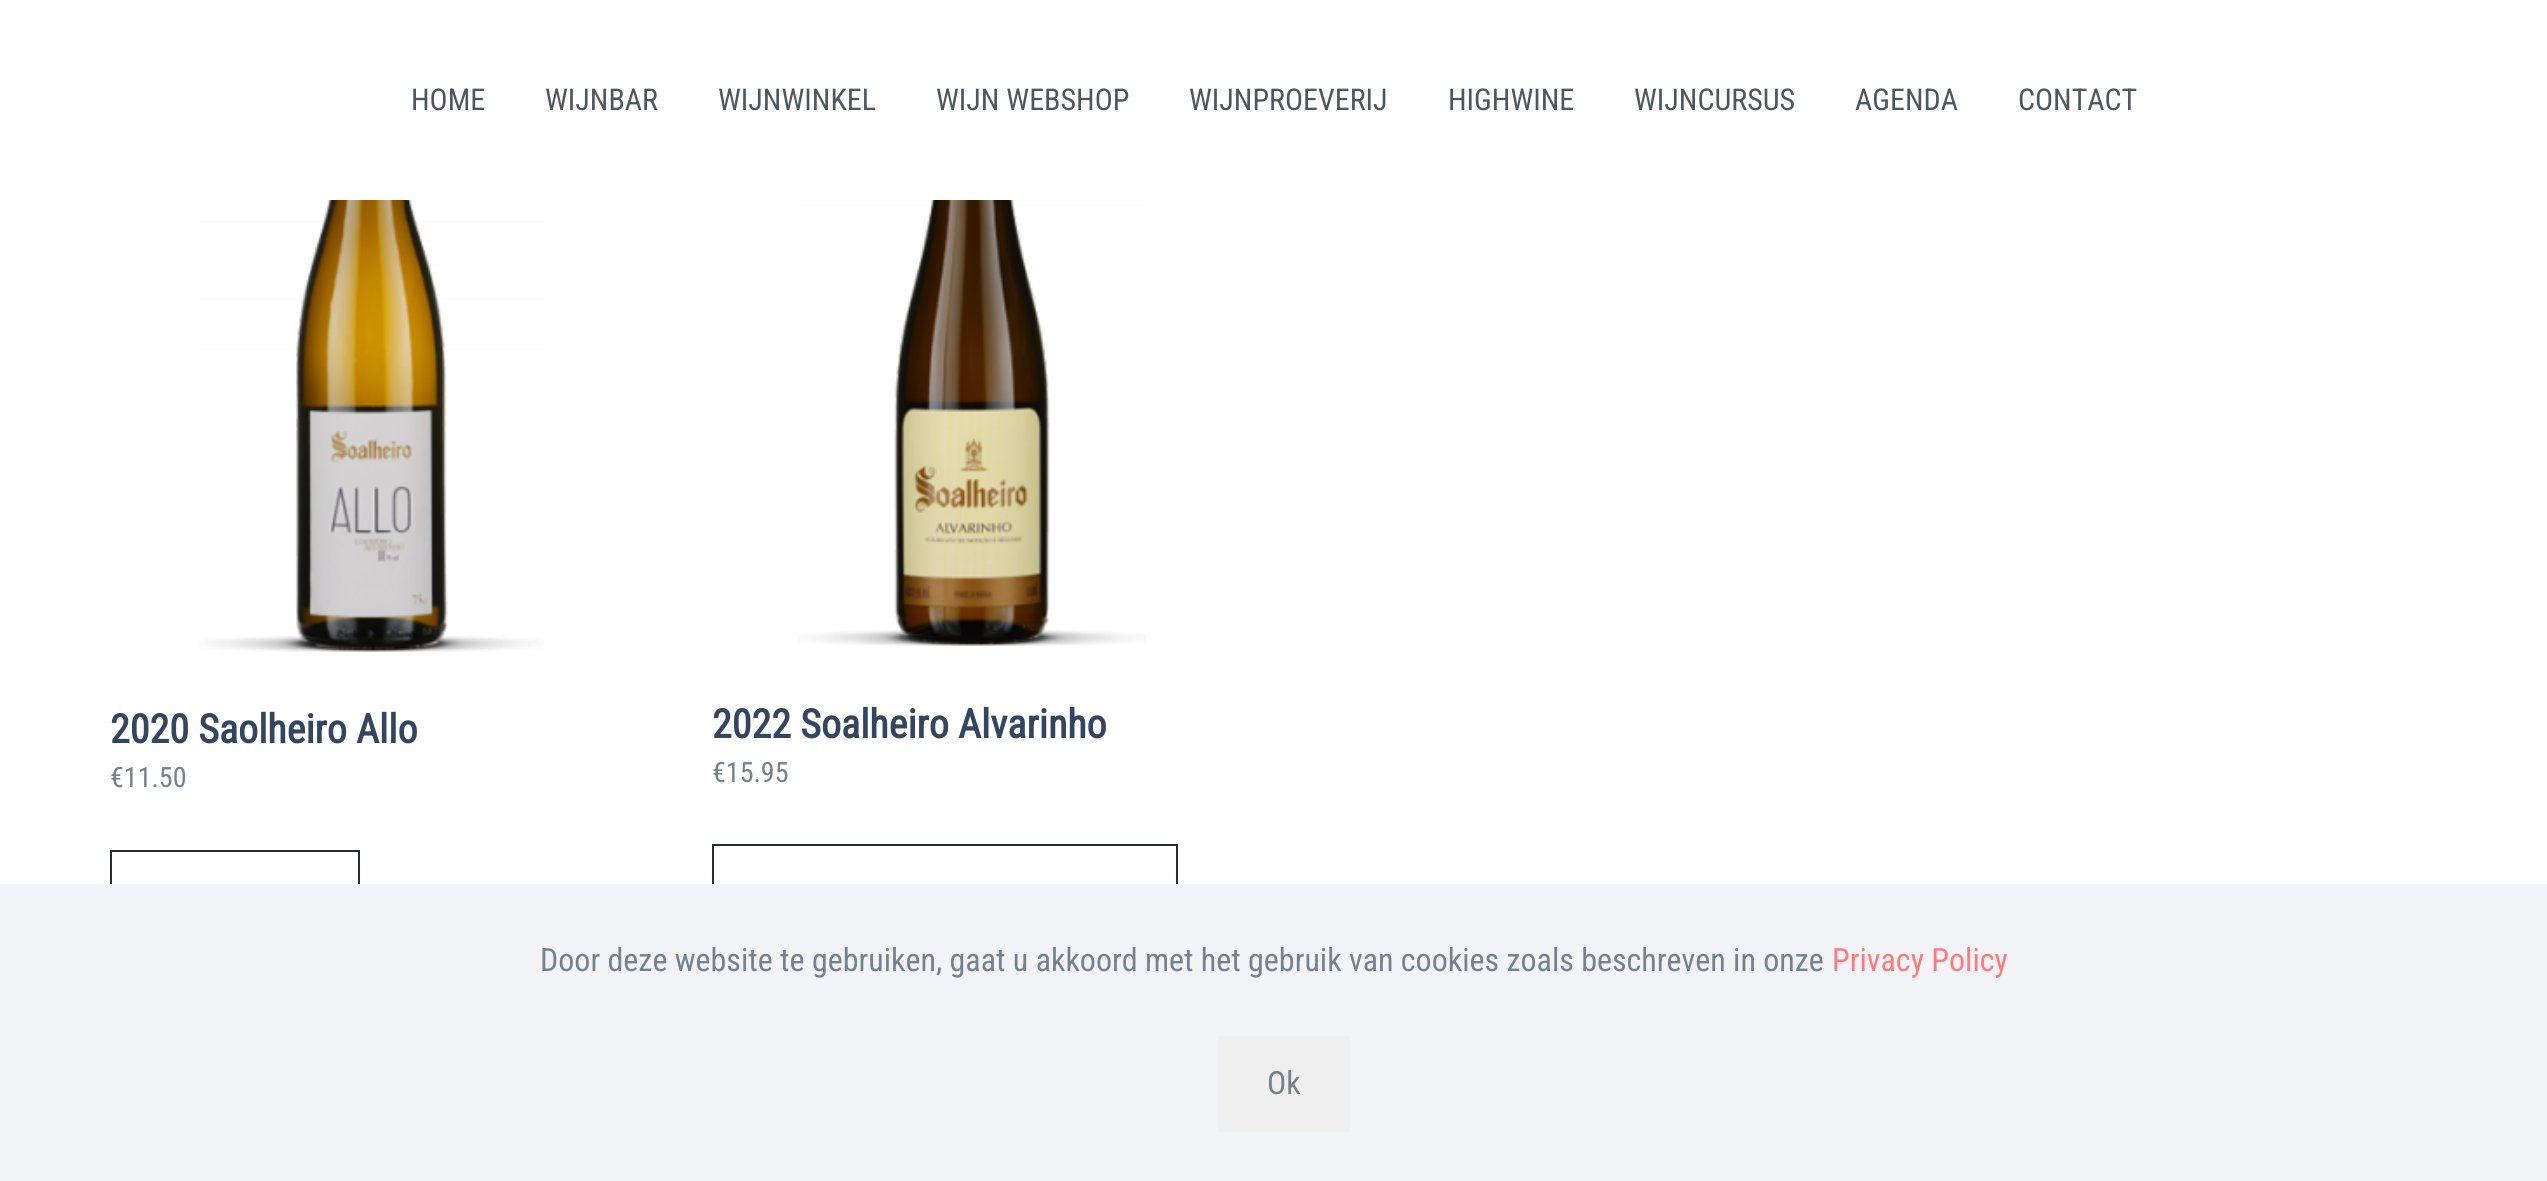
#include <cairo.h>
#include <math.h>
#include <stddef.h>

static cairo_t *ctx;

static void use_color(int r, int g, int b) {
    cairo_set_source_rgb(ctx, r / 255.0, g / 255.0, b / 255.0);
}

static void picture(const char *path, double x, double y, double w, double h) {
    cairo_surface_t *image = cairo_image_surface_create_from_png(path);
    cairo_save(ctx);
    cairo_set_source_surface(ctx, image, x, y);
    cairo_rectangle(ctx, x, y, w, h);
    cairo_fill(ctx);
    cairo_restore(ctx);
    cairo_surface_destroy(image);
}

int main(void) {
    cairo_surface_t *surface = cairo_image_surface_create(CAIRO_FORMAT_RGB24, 2547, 1181);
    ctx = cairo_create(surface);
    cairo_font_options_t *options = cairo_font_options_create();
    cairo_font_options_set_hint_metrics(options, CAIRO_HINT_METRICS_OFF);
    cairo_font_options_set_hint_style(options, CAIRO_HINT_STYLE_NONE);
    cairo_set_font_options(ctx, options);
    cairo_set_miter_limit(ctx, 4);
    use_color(255, 255, 255);
    cairo_paint(ctx);
    cairo_select_font_face(ctx, "Roboto Condensed", CAIRO_FONT_SLANT_NORMAL, CAIRO_FONT_WEIGHT_NORMAL);
    cairo_set_font_size(ctx, 30);
    use_color(78, 86, 96);
    cairo_move_to(ctx, 411, 110);
    cairo_show_text(ctx, "HOME");
    cairo_move_to(ctx, 545, 110);
    cairo_show_text(ctx, "WIJNBAR");
    cairo_move_to(ctx, 718, 110);
    cairo_show_text(ctx, "WIJNWINKEL");
    cairo_move_to(ctx, 936, 110);
    cairo_show_text(ctx, "WIJN WEBSHOP");
    cairo_move_to(ctx, 1189, 110);
    cairo_show_text(ctx, "WIJNPROEVERIJ");
    cairo_move_to(ctx, 1448, 110);
    cairo_show_text(ctx, "HIGHWINE");
    cairo_move_to(ctx, 1634, 110);
    cairo_show_text(ctx, "WIJNCURSUS");
    cairo_move_to(ctx, 1855, 110);
    cairo_show_text(ctx, "AGENDA");
    cairo_move_to(ctx, 2018, 110);
    cairo_show_text(ctx, "CONTACT");
    picture("img1.png", 198, 200, 346, 452);
    cairo_select_font_face(ctx, "Roboto Condensed", CAIRO_FONT_SLANT_NORMAL, CAIRO_FONT_WEIGHT_BOLD);
    cairo_set_font_size(ctx, 40);
    use_color(51, 69, 95);
    cairo_move_to(ctx, 110, 743);
    cairo_show_text(ctx, "2020 Saolheiro Allo");
    cairo_select_font_face(ctx, "Roboto Condensed", CAIRO_FONT_SLANT_NORMAL, CAIRO_FONT_WEIGHT_NORMAL);
    cairo_set_font_size(ctx, 28);
    use_color(119, 128, 142);
    cairo_move_to(ctx, 110, 787);
    cairo_show_text(ctx, "€11.50");
    cairo_rectangle(ctx, 111, 851, 248, 98);
    use_color(36, 45, 58);
    cairo_stroke(ctx);
    picture("img2.png", 798, 200, 348, 446);
    cairo_select_font_face(ctx, "Roboto Condensed", CAIRO_FONT_SLANT_NORMAL, CAIRO_FONT_WEIGHT_BOLD);
    cairo_set_font_size(ctx, 40);
    use_color(51, 69, 95);
    cairo_move_to(ctx, 712, 738);
    cairo_show_text(ctx, "2022 Soalheiro Alvarinho");
    cairo_select_font_face(ctx, "Roboto Condensed", CAIRO_FONT_SLANT_NORMAL, CAIRO_FONT_WEIGHT_NORMAL);
    cairo_set_font_size(ctx, 28);
    use_color(119, 128, 142);
    cairo_move_to(ctx, 712, 782);
    cairo_show_text(ctx, "€15.95");
    cairo_rectangle(ctx, 713, 845, 464, 98);
    use_color(36, 45, 58);
    cairo_stroke(ctx);
    use_color(241, 243, 246);
    cairo_rectangle(ctx, 0, 884, 2547, 297);
    cairo_fill(ctx);
    cairo_set_font_size(ctx, 32);
    use_color(119, 128, 142);
    cairo_move_to(ctx, 540, 971);
    cairo_show_text(ctx, "Door deze website te gebruiken, gaat u akkoord met het gebruik van cookies zoals beschreven in onze");
    use_color(255, 122, 123);
    cairo_move_to(ctx, 1832, 971);
    cairo_show_text(ctx, "Privacy Policy");
    use_color(239, 239, 239);
    cairo_rectangle(ctx, 1218, 1036, 132, 96);
    cairo_fill(ctx);
    use_color(119, 128, 142);
    cairo_move_to(ctx, 1267, 1094);
    cairo_show_text(ctx, "Ok");
    cairo_surface_write_to_png(surface, "result.png");
    cairo_font_options_destroy(options);
    cairo_destroy(ctx);
    cairo_surface_destroy(surface);
    return 0;
}
